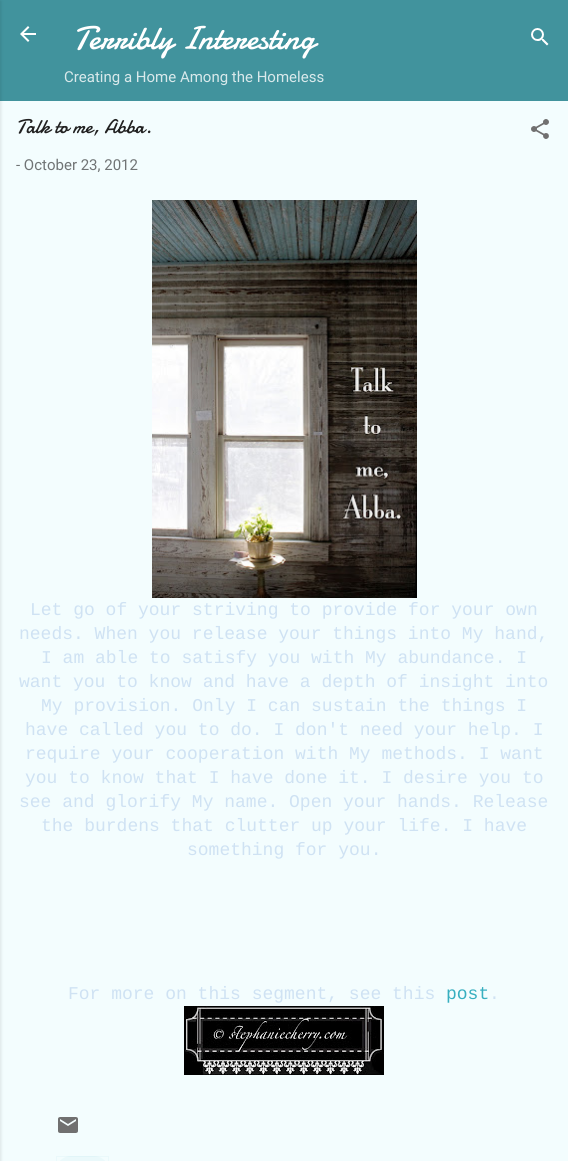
#include <cairo.h>
#include <math.h>
#include <stddef.h>

static cairo_t *ctx;

static void use_color(int r, int g, int b) {
    cairo_set_source_rgb(ctx, r / 255.0, g / 255.0, b / 255.0);
}

static void round_rect(double x, double y, double w, double h, double r) {
    cairo_new_sub_path(ctx);
    cairo_arc(ctx, x + w - r, y + h - r, r, 0, M_PI / 2);
    cairo_arc(ctx, x + r, y + h - r, r, M_PI / 2, M_PI);
    cairo_arc(ctx, x + r, y + r, r, M_PI, 1.5 * M_PI);
    cairo_arc(ctx, x + w - r, y + r, r, 1.5 * M_PI, 2 * M_PI);
    cairo_close_path(ctx);
}

static void shadow(double x, double y, double w, double h, double r, double blur, double alpha) {
    cairo_push_group_with_content(ctx, CAIRO_CONTENT_ALPHA);
    cairo_set_operator(ctx, CAIRO_OPERATOR_SOURCE);
    for (int i = 15; i >= -15 && fmin(w, h) + blur * i / 3 > 0; i -= 2) {
        double e = blur * i / 6;
        cairo_set_source_rgba(ctx, 0, 0, 0, alpha * erfc((i - 1) / 8.5) / 2);
        round_rect(x - e, y - e, w + 2 * e, h + 2 * e, fmax(0, fmin(r + e + blur * .6, fmin(w, h) / 2 + e)));
        cairo_fill(ctx);
    }
    cairo_pattern_t *soft = cairo_pop_group(ctx);
    cairo_mask(ctx, soft);
    cairo_pattern_destroy(soft);
}

static void picture(const char *path, double x, double y, double w, double h) {
    cairo_surface_t *image = cairo_image_surface_create_from_png(path);
    cairo_save(ctx);
    cairo_set_source_surface(ctx, image, x, y);
    cairo_rectangle(ctx, x, y, w, h);
    cairo_fill(ctx);
    cairo_restore(ctx);
    cairo_surface_destroy(image);
}

int main(void) {
    cairo_surface_t *surface = cairo_image_surface_create(CAIRO_FORMAT_RGB24, 568, 1161);
    ctx = cairo_create(surface);
    cairo_font_options_t *options = cairo_font_options_create();
    cairo_font_options_set_hint_metrics(options, CAIRO_HINT_METRICS_OFF);
    cairo_font_options_set_hint_style(options, CAIRO_HINT_STYLE_NONE);
    cairo_set_font_options(ctx, options);
    cairo_set_miter_limit(ctx, 4);
    use_color(65, 147, 157);
    cairo_paint(ctx);
    use_color(243, 253, 254);
    cairo_rectangle(ctx, 0, 101, 568, 1060);
    cairo_fill(ctx);
    use_color(0, 0, 0);
    shadow(-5, 1, 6, 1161, 0, 1.5, 0.1);
    picture("img1.png", 20, 26, 16, 16);
    cairo_select_font_face(ctx, "Damion", CAIRO_FONT_SLANT_NORMAL, CAIRO_FONT_WEIGHT_NORMAL);
    cairo_set_font_size(ctx, 33);
    use_color(255, 255, 255);
    cairo_move_to(ctx, 73, 49);
    cairo_show_text(ctx, "Terribly Interesting");
    cairo_select_font_face(ctx, "Roboto", CAIRO_FONT_SLANT_NORMAL, CAIRO_FONT_WEIGHT_NORMAL);
    cairo_set_font_size(ctx, 15);
    use_color(217, 233, 235);
    cairo_move_to(ctx, 64, 82);
    cairo_show_text(ctx, "Creating a Home Among the Homeless");
    picture("img2.png", 531, 28, 18, 18);
    cairo_select_font_face(ctx, "Damion", CAIRO_FONT_SLANT_NORMAL, CAIRO_FONT_WEIGHT_NORMAL);
    cairo_set_font_size(ctx, 20);
    use_color(33, 33, 33);
    cairo_move_to(ctx, 16, 133);
    cairo_show_text(ctx, "Talk to me, Abba.");
    picture("img3.png", 531, 119, 18, 20);
    cairo_select_font_face(ctx, "Roboto", CAIRO_FONT_SLANT_NORMAL, CAIRO_FONT_WEIGHT_NORMAL);
    cairo_set_font_size(ctx, 15);
    use_color(112, 116, 117);
    cairo_move_to(ctx, 16, 170);
    cairo_show_text(ctx, "- October 23, 2012");
    picture("img4.png", 152, 200, 265, 398);
    cairo_select_font_face(ctx, "Liberation Mono", CAIRO_FONT_SLANT_NORMAL, CAIRO_FONT_WEIGHT_NORMAL);
    cairo_set_font_size(ctx, 18);
    use_color(207, 226, 243);
    cairo_move_to(ctx, 30, 615);
    cairo_show_text(ctx, "Let go of your striving to provide for your own");
    cairo_move_to(ctx, 19, 639);
    cairo_show_text(ctx, "needs. When you release your things into My hand,");
    cairo_move_to(ctx, 41, 663);
    cairo_show_text(ctx, "I am able to satisfy you with My abundance. I");
    cairo_move_to(ctx, 19, 687);
    cairo_show_text(ctx, "want you to know and have a depth of insight into");
    cairo_move_to(ctx, 41, 711);
    cairo_show_text(ctx, "My provision. Only I can sustain the things I");
    cairo_move_to(ctx, 25, 735);
    cairo_show_text(ctx, "have called you to do. I don't need your help. I");
    cairo_move_to(ctx, 25, 759);
    cairo_show_text(ctx, "require your cooperation with My methods. I want");
    cairo_move_to(ctx, 25, 783);
    cairo_show_text(ctx, "you to know that I have done it. I desire you to");
    cairo_move_to(ctx, 19, 807);
    cairo_show_text(ctx, "see and glorify My name. Open your hands. Release");
    cairo_move_to(ctx, 41, 831);
    cairo_show_text(ctx, "the burdens that clutter up your life. I have");
    cairo_move_to(ctx, 187, 855);
    cairo_show_text(ctx, "something for you.");
    cairo_move_to(ctx, 68, 999);
    cairo_show_text(ctx, "For more on this segment, see this");
    use_color(55, 175, 192);
    cairo_move_to(ctx, 446, 999);
    cairo_show_text(ctx, "post");
    use_color(207, 226, 243);
    cairo_move_to(ctx, 489, 999);
    cairo_show_text(ctx, ".");
    picture("img5.png", 184, 1006, 200, 69);
    picture("img6.png", 58, 1117, 20, 16);
    use_color(234, 249, 251);
    round_rect(56, 1156, 53, 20, 15);
    cairo_fill(ctx);
    cairo_rectangle(ctx, 56.5, 1156.5, 52, 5);
    cairo_set_source_rgba(ctx, 0.216, 0.686, 0.753, 0.05);
    cairo_set_line_width(ctx, 1);
    cairo_stroke(ctx);
    cairo_surface_write_to_png(surface, "result.png");
    cairo_font_options_destroy(options);
    cairo_destroy(ctx);
    cairo_surface_destroy(surface);
    return 0;
}
